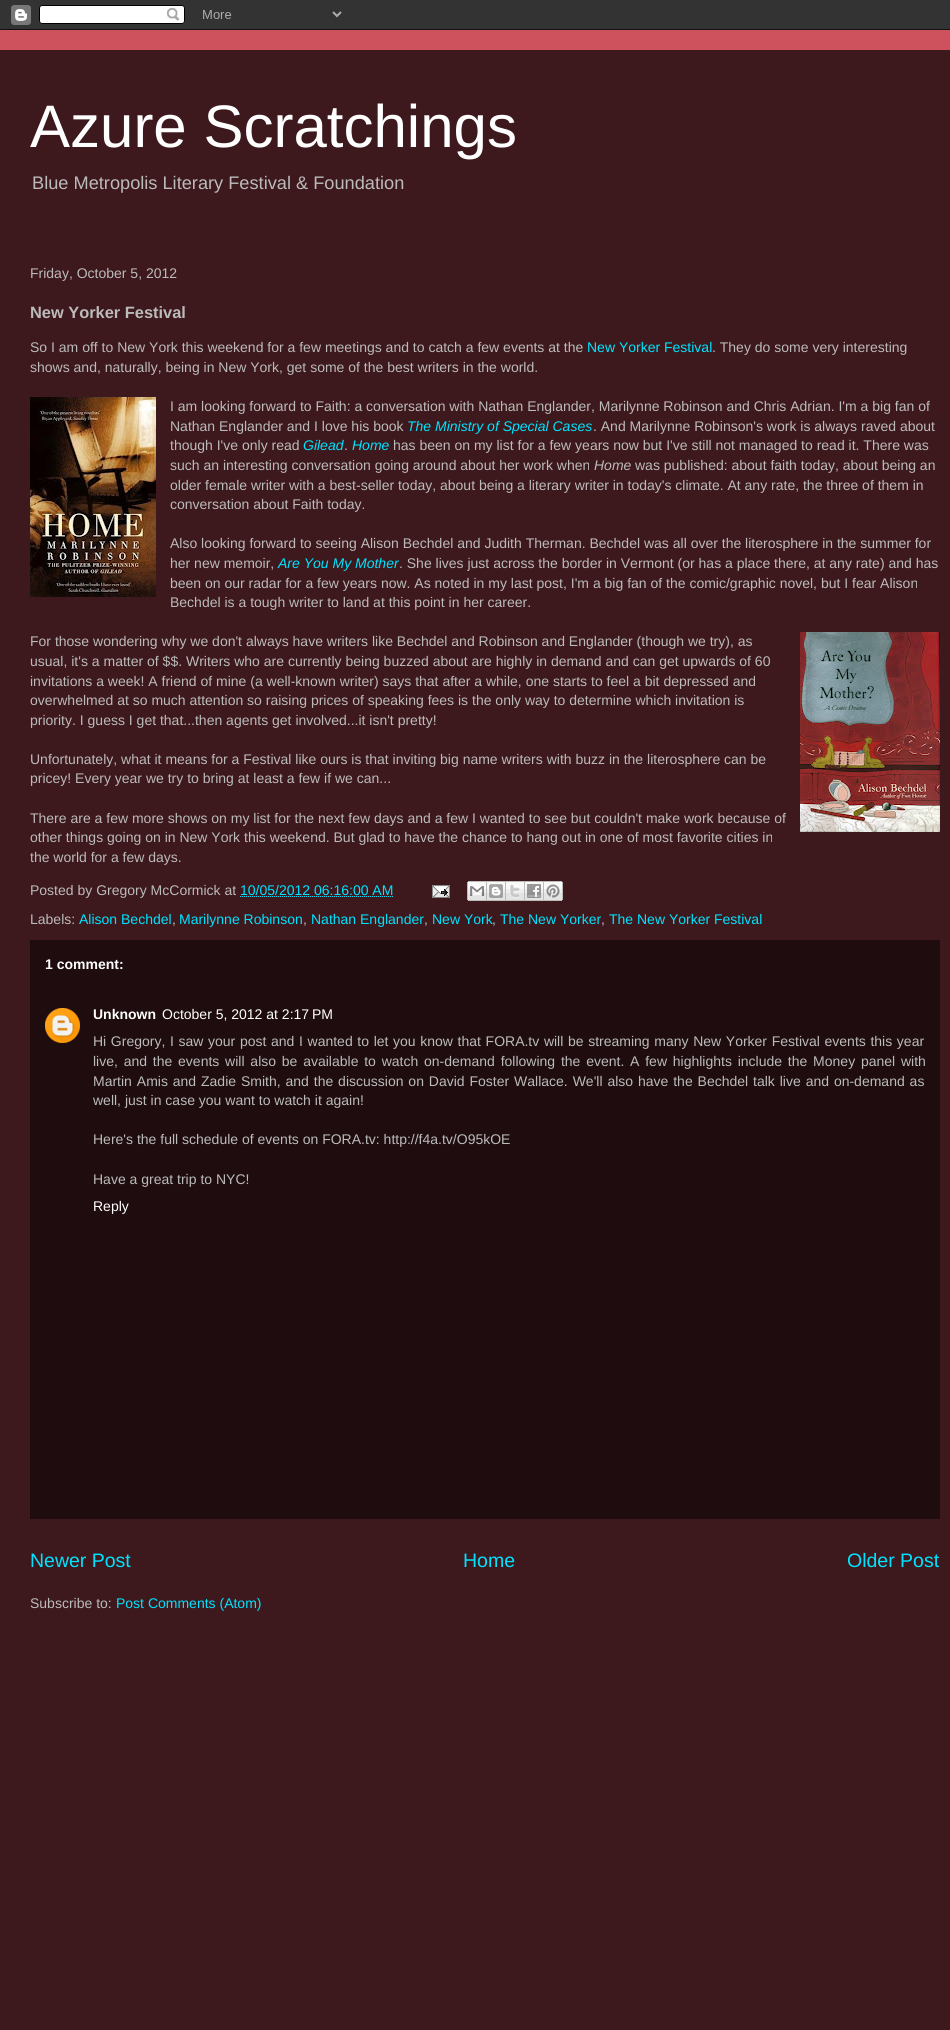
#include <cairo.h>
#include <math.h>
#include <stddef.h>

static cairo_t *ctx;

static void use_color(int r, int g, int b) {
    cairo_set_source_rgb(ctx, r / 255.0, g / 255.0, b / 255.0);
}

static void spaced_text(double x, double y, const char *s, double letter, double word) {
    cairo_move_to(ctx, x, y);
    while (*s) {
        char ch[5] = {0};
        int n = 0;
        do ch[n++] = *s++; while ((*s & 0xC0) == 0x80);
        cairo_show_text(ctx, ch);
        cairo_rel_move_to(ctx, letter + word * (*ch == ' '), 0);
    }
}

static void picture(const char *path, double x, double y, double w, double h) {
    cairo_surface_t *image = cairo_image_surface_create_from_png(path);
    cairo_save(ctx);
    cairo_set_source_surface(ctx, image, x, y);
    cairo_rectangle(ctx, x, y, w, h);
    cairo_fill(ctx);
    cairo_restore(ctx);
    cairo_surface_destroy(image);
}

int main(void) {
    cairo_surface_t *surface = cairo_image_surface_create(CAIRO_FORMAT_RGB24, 950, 2030);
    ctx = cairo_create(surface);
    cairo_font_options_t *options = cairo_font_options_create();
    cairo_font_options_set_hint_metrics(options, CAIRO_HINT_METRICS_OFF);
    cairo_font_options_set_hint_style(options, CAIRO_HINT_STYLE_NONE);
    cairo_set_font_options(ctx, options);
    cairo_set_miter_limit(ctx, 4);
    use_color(205, 82, 93);
    cairo_paint(ctx);
    picture("img1.png", 0, 0, 950, 30);
    use_color(61, 24, 28);
    cairo_rectangle(ctx, 0, 50, 950, 1980);
    cairo_fill(ctx);
    cairo_select_font_face(ctx, "Liberation Sans", CAIRO_FONT_SLANT_NORMAL, CAIRO_FONT_WEIGHT_NORMAL);
    cairo_set_font_size(ctx, 60);
    use_color(255, 255, 255);
    cairo_move_to(ctx, 30, 147);
    cairo_show_text(ctx, "Azure Scratchings");
    cairo_set_font_size(ctx, 18.2);
    use_color(187, 187, 187);
    cairo_move_to(ctx, 32, 189);
    cairo_show_text(ctx, "Blue Metropolis Literary Festival & Foundation");
    cairo_set_font_size(ctx, 14);
    cairo_move_to(ctx, 30, 278);
    cairo_show_text(ctx, "Friday, October 5, 2012");
    cairo_select_font_face(ctx, "Liberation Sans", CAIRO_FONT_SLANT_NORMAL, CAIRO_FONT_WEIGHT_BOLD);
    cairo_set_font_size(ctx, 16.4);
    cairo_move_to(ctx, 30, 318);
    cairo_show_text(ctx, "New Yorker Festival");
    cairo_select_font_face(ctx, "Liberation Sans", CAIRO_FONT_SLANT_NORMAL, CAIRO_FONT_WEIGHT_NORMAL);
    cairo_set_font_size(ctx, 14);
    cairo_move_to(ctx, 30, 352);
    cairo_show_text(ctx, "So I am off to New York this weekend for a few meetings and to catch a few events at the");
    use_color(0, 227, 255);
    cairo_move_to(ctx, 587, 352);
    cairo_show_text(ctx, "New Yorker Festival");
    use_color(187, 187, 187);
    cairo_move_to(ctx, 712, 352);
    cairo_show_text(ctx, ". They do some very interesting");
    cairo_move_to(ctx, 30, 372);
    cairo_show_text(ctx, "shows and, naturally, being in New York, get some of the best writers in the world.");
    picture("img2.png", 30, 397, 126, 200);
    cairo_move_to(ctx, 170, 411);
    cairo_show_text(ctx, "I am looking forward to Faith: a conversation with Nathan Englander, Marilynne Robinson and Chris Adrian. I'm a big fan of");
    cairo_move_to(ctx, 170, 431);
    cairo_show_text(ctx, "Nathan Englander and I love his book");
    cairo_select_font_face(ctx, "Liberation Sans", CAIRO_FONT_SLANT_ITALIC, CAIRO_FONT_WEIGHT_NORMAL);
    use_color(0, 227, 255);
    cairo_move_to(ctx, 407, 431);
    cairo_show_text(ctx, "The Ministry of Special Cases");
    cairo_select_font_face(ctx, "Liberation Sans", CAIRO_FONT_SLANT_NORMAL, CAIRO_FONT_WEIGHT_NORMAL);
    use_color(187, 187, 187);
    cairo_move_to(ctx, 593, 431);
    cairo_show_text(ctx, ". And Marilynne Robinson's work is always raved about");
    cairo_move_to(ctx, 170, 450);
    cairo_show_text(ctx, "though I've only read");
    cairo_select_font_face(ctx, "Liberation Sans", CAIRO_FONT_SLANT_ITALIC, CAIRO_FONT_WEIGHT_NORMAL);
    use_color(0, 227, 255);
    cairo_move_to(ctx, 303, 450);
    cairo_show_text(ctx, "Gilead");
    cairo_select_font_face(ctx, "Liberation Sans", CAIRO_FONT_SLANT_NORMAL, CAIRO_FONT_WEIGHT_NORMAL);
    use_color(187, 187, 187);
    cairo_move_to(ctx, 344, 450);
    cairo_show_text(ctx, ".");
    cairo_select_font_face(ctx, "Liberation Sans", CAIRO_FONT_SLANT_ITALIC, CAIRO_FONT_WEIGHT_NORMAL);
    use_color(0, 227, 255);
    cairo_move_to(ctx, 352, 450);
    cairo_show_text(ctx, "Home");
    cairo_select_font_face(ctx, "Liberation Sans", CAIRO_FONT_SLANT_NORMAL, CAIRO_FONT_WEIGHT_NORMAL);
    use_color(187, 187, 187);
    cairo_move_to(ctx, 393, 450);
    cairo_show_text(ctx, "has been on my list for a few years now but I've still not managed to read it. There was");
    cairo_move_to(ctx, 170, 470);
    cairo_show_text(ctx, "such an interesting conversation going around about her work when");
    cairo_select_font_face(ctx, "Liberation Sans", CAIRO_FONT_SLANT_ITALIC, CAIRO_FONT_WEIGHT_NORMAL);
    cairo_move_to(ctx, 594, 470);
    cairo_show_text(ctx, "Home");
    cairo_select_font_face(ctx, "Liberation Sans", CAIRO_FONT_SLANT_NORMAL, CAIRO_FONT_WEIGHT_NORMAL);
    cairo_move_to(ctx, 635, 470);
    cairo_show_text(ctx, "was published: about faith today, about being an");
    cairo_move_to(ctx, 170, 490);
    cairo_show_text(ctx, "older female writer with a best-seller today, about being a literary writer in today's climate. At any rate, the three of them in");
    cairo_move_to(ctx, 170, 509);
    cairo_show_text(ctx, "conversation about Faith today.");
    cairo_move_to(ctx, 170, 548);
    cairo_show_text(ctx, "Also looking forward to seeing Alison Bechdel and Judith Therman. Bechdel was all over the literosphere in the summer for");
    cairo_move_to(ctx, 170, 568);
    cairo_show_text(ctx, "her new memoir,");
    cairo_select_font_face(ctx, "Liberation Sans", CAIRO_FONT_SLANT_ITALIC, CAIRO_FONT_WEIGHT_NORMAL);
    use_color(0, 227, 255);
    cairo_move_to(ctx, 278, 568);
    cairo_show_text(ctx, "Are You My Mother");
    cairo_select_font_face(ctx, "Liberation Sans", CAIRO_FONT_SLANT_NORMAL, CAIRO_FONT_WEIGHT_NORMAL);
    use_color(187, 187, 187);
    cairo_move_to(ctx, 399, 568);
    cairo_show_text(ctx, ". She lives just across the border in Vermont (or has a place there, at any rate) and has");
    cairo_move_to(ctx, 170, 588);
    cairo_show_text(ctx, "been on our radar for a few years now. As noted in my last post, I'm a big fan of the comic/graphic novel, but I fear Alison");
    cairo_move_to(ctx, 170, 607);
    cairo_show_text(ctx, "Bechdel is a tough writer to land at this point in her career.");
    cairo_move_to(ctx, 30, 646);
    cairo_show_text(ctx, "For those wondering why we don't always have writers like Bechdel and Robinson and Englander (though we try), as");
    picture("img3.png", 800, 632, 140, 200);
    cairo_move_to(ctx, 30, 666);
    cairo_show_text(ctx, "usual, it's a matter of $$. Writers who are currently being buzzed about are highly in demand and can get upwards of 60");
    cairo_move_to(ctx, 30, 686);
    cairo_show_text(ctx, "invitations a week! A friend of mine (a well-known writer) says that after a while, one starts to feel a bit depressed and");
    cairo_move_to(ctx, 30, 705);
    cairo_show_text(ctx, "overwhelmed at so much attention so raising prices of speaking fees is the only way to determine which invitation is");
    cairo_move_to(ctx, 30, 725);
    cairo_show_text(ctx, "priority. I guess I get that...then agents get involved...it isn't pretty!");
    cairo_move_to(ctx, 30, 764);
    cairo_show_text(ctx, "Unfortunately, what it means for a Festival like ours is that inviting big name writers with buzz in the literosphere can be");
    cairo_move_to(ctx, 30, 783);
    cairo_show_text(ctx, "pricey! Every year we try to bring at least a few if we can...");
    cairo_move_to(ctx, 30, 823);
    cairo_show_text(ctx, "There are a few more shows on my list for the next few days and a few I wanted to see but couldn't make work because of");
    cairo_move_to(ctx, 30, 842);
    cairo_show_text(ctx, "other things going on in New York this weekend. But glad to have the chance to hang out in one of most favorite cities in");
    cairo_move_to(ctx, 30, 862);
    cairo_show_text(ctx, "the world for a few days.");
    cairo_move_to(ctx, 30, 895);
    cairo_show_text(ctx, "Posted by Gregory McCormick at");
    use_color(0, 227, 255);
    cairo_move_to(ctx, 240, 895);
    cairo_show_text(ctx, "10/05/2012 06:16:00 AM");
    cairo_new_path(ctx);
    cairo_move_to(ctx, 240, 896.5);
    cairo_line_to(ctx, 393.5, 896.5);
    cairo_set_line_width(ctx, 1);
    cairo_set_dash(ctx, (double[]){1, 1}, 2, 0);
    cairo_stroke(ctx);
    picture("img4.png", 432, 885, 18, 13);
    picture("img5.png", 467, 881, 20, 20);
    picture("img6.png", 487, 881, 19, 20);
    picture("img7.png", 506, 881, 19, 20);
    picture("img8.png", 525, 881, 19, 20);
    picture("img9.png", 544, 881, 19, 20);
    use_color(187, 187, 187);
    cairo_move_to(ctx, 30, 924);
    cairo_show_text(ctx, "Labels:");
    use_color(0, 227, 255);
    cairo_move_to(ctx, 79, 924);
    cairo_show_text(ctx, "Alison Bechdel");
    use_color(187, 187, 187);
    cairo_move_to(ctx, 172, 924);
    cairo_show_text(ctx, ",");
    use_color(0, 227, 255);
    cairo_move_to(ctx, 179, 924);
    cairo_show_text(ctx, "Marilynne Robinson");
    use_color(187, 187, 187);
    cairo_move_to(ctx, 303, 924);
    cairo_show_text(ctx, ",");
    use_color(0, 227, 255);
    cairo_move_to(ctx, 311, 924);
    cairo_show_text(ctx, "Nathan Englander");
    use_color(187, 187, 187);
    cairo_move_to(ctx, 424, 924);
    cairo_show_text(ctx, ",");
    use_color(0, 227, 255);
    cairo_move_to(ctx, 432, 924);
    cairo_show_text(ctx, "New York");
    use_color(187, 187, 187);
    cairo_move_to(ctx, 492, 924);
    cairo_show_text(ctx, ",");
    use_color(0, 227, 255);
    cairo_move_to(ctx, 500, 924);
    cairo_show_text(ctx, "The New Yorker");
    use_color(187, 187, 187);
    cairo_move_to(ctx, 601, 924);
    cairo_show_text(ctx, ",");
    use_color(0, 227, 255);
    cairo_move_to(ctx, 609, 924);
    cairo_show_text(ctx, "The New Yorker Festival");
    use_color(30, 12, 14);
    cairo_rectangle(ctx, 30, 940, 910, 579);
    cairo_fill(ctx);
    cairo_select_font_face(ctx, "Liberation Sans", CAIRO_FONT_SLANT_NORMAL, CAIRO_FONT_WEIGHT_BOLD);
    use_color(255, 255, 255);
    cairo_move_to(ctx, 45, 969);
    cairo_show_text(ctx, "1 comment:");
    picture("img10.png", 45, 1008, 35, 35);
    cairo_move_to(ctx, 93, 1019);
    cairo_show_text(ctx, "Unknown");
    cairo_select_font_face(ctx, "Liberation Sans", CAIRO_FONT_SLANT_NORMAL, CAIRO_FONT_WEIGHT_NORMAL);
    cairo_move_to(ctx, 162, 1019);
    cairo_show_text(ctx, "October 5, 2012 at 2:17 PM");
    use_color(187, 187, 187);
    spaced_text(93, 1046, "Hi Gregory, I saw your post and I wanted to let you know that FORA.tv will be streaming many New Yorker Festival events this year", 0, 0.75);
    spaced_text(93, 1066, "live, and the events will also be available to watch on-demand following the event. A few highlights include the Money panel with", 0, 1.9);
    spaced_text(93, 1086, "Martin Amis and Zadie Smith, and the discussion on David Foster Wallace. We'll also have the Bechdel talk live and on-demand as", 0, 1);
    cairo_move_to(ctx, 93, 1105);
    cairo_show_text(ctx, "well, just in case you want to watch it again!");
    cairo_move_to(ctx, 93, 1144);
    cairo_show_text(ctx, "Here's the full schedule of events on FORA.tv: http://f4a.tv/O95kOE");
    cairo_move_to(ctx, 93, 1184);
    cairo_show_text(ctx, "Have a great trip to NYC!");
    use_color(255, 255, 255);
    cairo_move_to(ctx, 93, 1211);
    cairo_show_text(ctx, "Reply");
    cairo_set_font_size(ctx, 19.5);
    use_color(0, 227, 255);
    cairo_move_to(ctx, 30, 1567);
    cairo_show_text(ctx, "Newer Post");
    cairo_move_to(ctx, 463, 1567);
    cairo_show_text(ctx, "Home");
    cairo_move_to(ctx, 847, 1567);
    cairo_show_text(ctx, "Older Post");
    cairo_set_font_size(ctx, 14);
    use_color(187, 187, 187);
    cairo_move_to(ctx, 30, 1608);
    cairo_show_text(ctx, "Subscribe to:");
    use_color(0, 227, 255);
    cairo_move_to(ctx, 116, 1608);
    cairo_show_text(ctx, "Post Comments (Atom)");
    cairo_surface_write_to_png(surface, "result.png");
    cairo_font_options_destroy(options);
    cairo_destroy(ctx);
    cairo_surface_destroy(surface);
    return 0;
}
